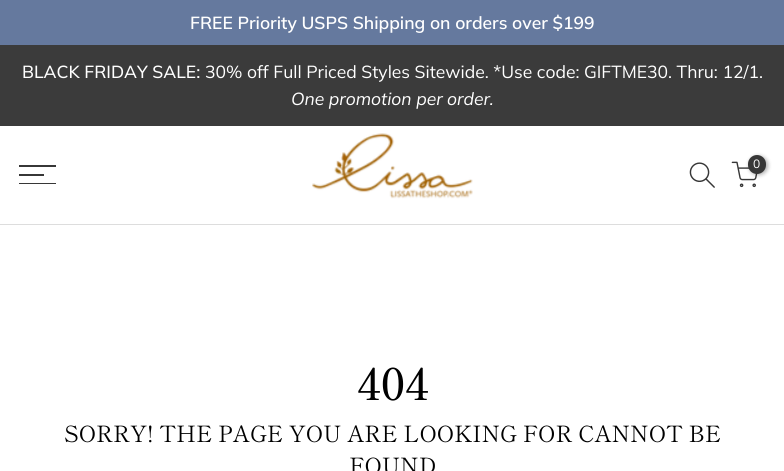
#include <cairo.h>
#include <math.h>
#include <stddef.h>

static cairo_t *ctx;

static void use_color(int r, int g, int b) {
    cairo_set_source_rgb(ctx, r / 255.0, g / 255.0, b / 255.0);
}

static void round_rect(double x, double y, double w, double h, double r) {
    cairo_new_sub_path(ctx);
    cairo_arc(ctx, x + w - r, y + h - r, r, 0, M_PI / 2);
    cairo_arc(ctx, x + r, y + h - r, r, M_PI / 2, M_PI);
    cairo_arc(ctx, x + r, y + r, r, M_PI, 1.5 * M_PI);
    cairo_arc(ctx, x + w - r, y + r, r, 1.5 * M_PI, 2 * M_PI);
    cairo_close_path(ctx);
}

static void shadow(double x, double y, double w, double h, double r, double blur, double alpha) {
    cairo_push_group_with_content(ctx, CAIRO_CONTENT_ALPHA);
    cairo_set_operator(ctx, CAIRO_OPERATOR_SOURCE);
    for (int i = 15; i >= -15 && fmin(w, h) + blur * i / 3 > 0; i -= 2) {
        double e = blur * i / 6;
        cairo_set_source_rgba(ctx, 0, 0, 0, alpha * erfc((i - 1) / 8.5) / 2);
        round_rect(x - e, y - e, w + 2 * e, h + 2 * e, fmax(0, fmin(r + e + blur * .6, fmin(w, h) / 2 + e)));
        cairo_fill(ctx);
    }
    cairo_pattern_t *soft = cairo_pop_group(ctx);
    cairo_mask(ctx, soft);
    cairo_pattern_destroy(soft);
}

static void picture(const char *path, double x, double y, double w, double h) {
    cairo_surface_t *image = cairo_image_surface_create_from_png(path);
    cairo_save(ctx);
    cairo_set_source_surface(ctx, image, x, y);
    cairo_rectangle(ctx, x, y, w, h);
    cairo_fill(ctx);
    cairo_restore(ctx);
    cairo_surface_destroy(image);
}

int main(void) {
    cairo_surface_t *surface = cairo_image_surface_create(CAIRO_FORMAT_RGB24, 784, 471);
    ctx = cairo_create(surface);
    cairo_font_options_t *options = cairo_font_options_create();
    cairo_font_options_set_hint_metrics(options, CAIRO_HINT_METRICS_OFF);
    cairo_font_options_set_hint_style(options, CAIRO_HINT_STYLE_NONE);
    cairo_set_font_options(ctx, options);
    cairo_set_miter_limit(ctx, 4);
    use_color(255, 255, 255);
    cairo_paint(ctx);
    use_color(101, 121, 158);
    cairo_rectangle(ctx, 0, 0, 784, 45);
    cairo_fill(ctx);
    cairo_select_font_face(ctx, "Mulish SemiBold", CAIRO_FONT_SLANT_NORMAL, CAIRO_FONT_WEIGHT_NORMAL);
    cairo_set_font_size(ctx, 17.5);
    use_color(255, 255, 255);
    cairo_move_to(ctx, 190, 29);
    cairo_show_text(ctx, "FREE Priority USPS Shipping on orders over $199");
    use_color(59, 59, 59);
    cairo_rectangle(ctx, 0, 45, 784, 81);
    cairo_fill(ctx);
    cairo_select_font_face(ctx, "Mulish Medium", CAIRO_FONT_SLANT_NORMAL, CAIRO_FONT_WEIGHT_NORMAL);
    use_color(255, 255, 255);
    cairo_move_to(ctx, 22, 78);
    cairo_show_text(ctx, "BLACK FRIDAY SALE:");
    cairo_select_font_face(ctx, "Mulish", CAIRO_FONT_SLANT_NORMAL, CAIRO_FONT_WEIGHT_NORMAL);
    cairo_move_to(ctx, 205, 78);
    cairo_show_text(ctx, "30% off Full Priced Styles Sitewide. *Use code: GIFTME30. Thru: 12/1.");
    cairo_select_font_face(ctx, "Mulish", CAIRO_FONT_SLANT_ITALIC, CAIRO_FONT_WEIGHT_NORMAL);
    cairo_move_to(ctx, 291, 105);
    cairo_show_text(ctx, "One promotion per order.");
    use_color(221, 221, 221);
    cairo_rectangle(ctx, 0, 224, 784, 1);
    cairo_fill(ctx);
    picture("img1.png", 312, 133, 161, 66);
    picture("img2.png", 689, 162, 26, 26);
    picture("img3.png", 731, 161, 27, 27);
    use_color(0, 0, 0);
    shadow(749, 156, 19, 19, 9.5, 2, 0.3);
    use_color(55, 55, 55);
    round_rect(748, 155, 18, 19, 9);
    cairo_fill(ctx);
    cairo_select_font_face(ctx, "Mulish", CAIRO_FONT_SLANT_NORMAL, CAIRO_FONT_WEIGHT_NORMAL);
    cairo_set_font_size(ctx, 12);
    use_color(255, 255, 255);
    cairo_move_to(ctx, 753, 168);
    cairo_show_text(ctx, "0");
    use_color(55, 55, 55);
    cairo_rectangle(ctx, 19, 165, 37, 2);
    cairo_fill(ctx);
    cairo_rectangle(ctx, 19, 174, 25, 2);
    cairo_fill(ctx);
    cairo_rectangle(ctx, 19, 183, 37, 1);
    cairo_fill(ctx);
    cairo_select_font_face(ctx, "Shippori Mincho Medium", CAIRO_FONT_SLANT_NORMAL, CAIRO_FONT_WEIGHT_NORMAL);
    cairo_set_font_size(ctx, 44);
    use_color(0, 0, 0);
    cairo_move_to(ctx, 357, 400);
    cairo_show_text(ctx, "404");
    cairo_select_font_face(ctx, "Shippori Mincho", CAIRO_FONT_SLANT_NORMAL, CAIRO_FONT_WEIGHT_NORMAL);
    cairo_set_font_size(ctx, 22.5);
    cairo_move_to(ctx, 64, 442);
    cairo_show_text(ctx, "SORRY! THE PAGE YOU ARE LOOKING FOR CANNOT BE");
    cairo_move_to(ctx, 349, 474);
    cairo_show_text(ctx, "FOUND");
    cairo_surface_write_to_png(surface, "result.png");
    cairo_font_options_destroy(options);
    cairo_destroy(ctx);
    cairo_surface_destroy(surface);
    return 0;
}
